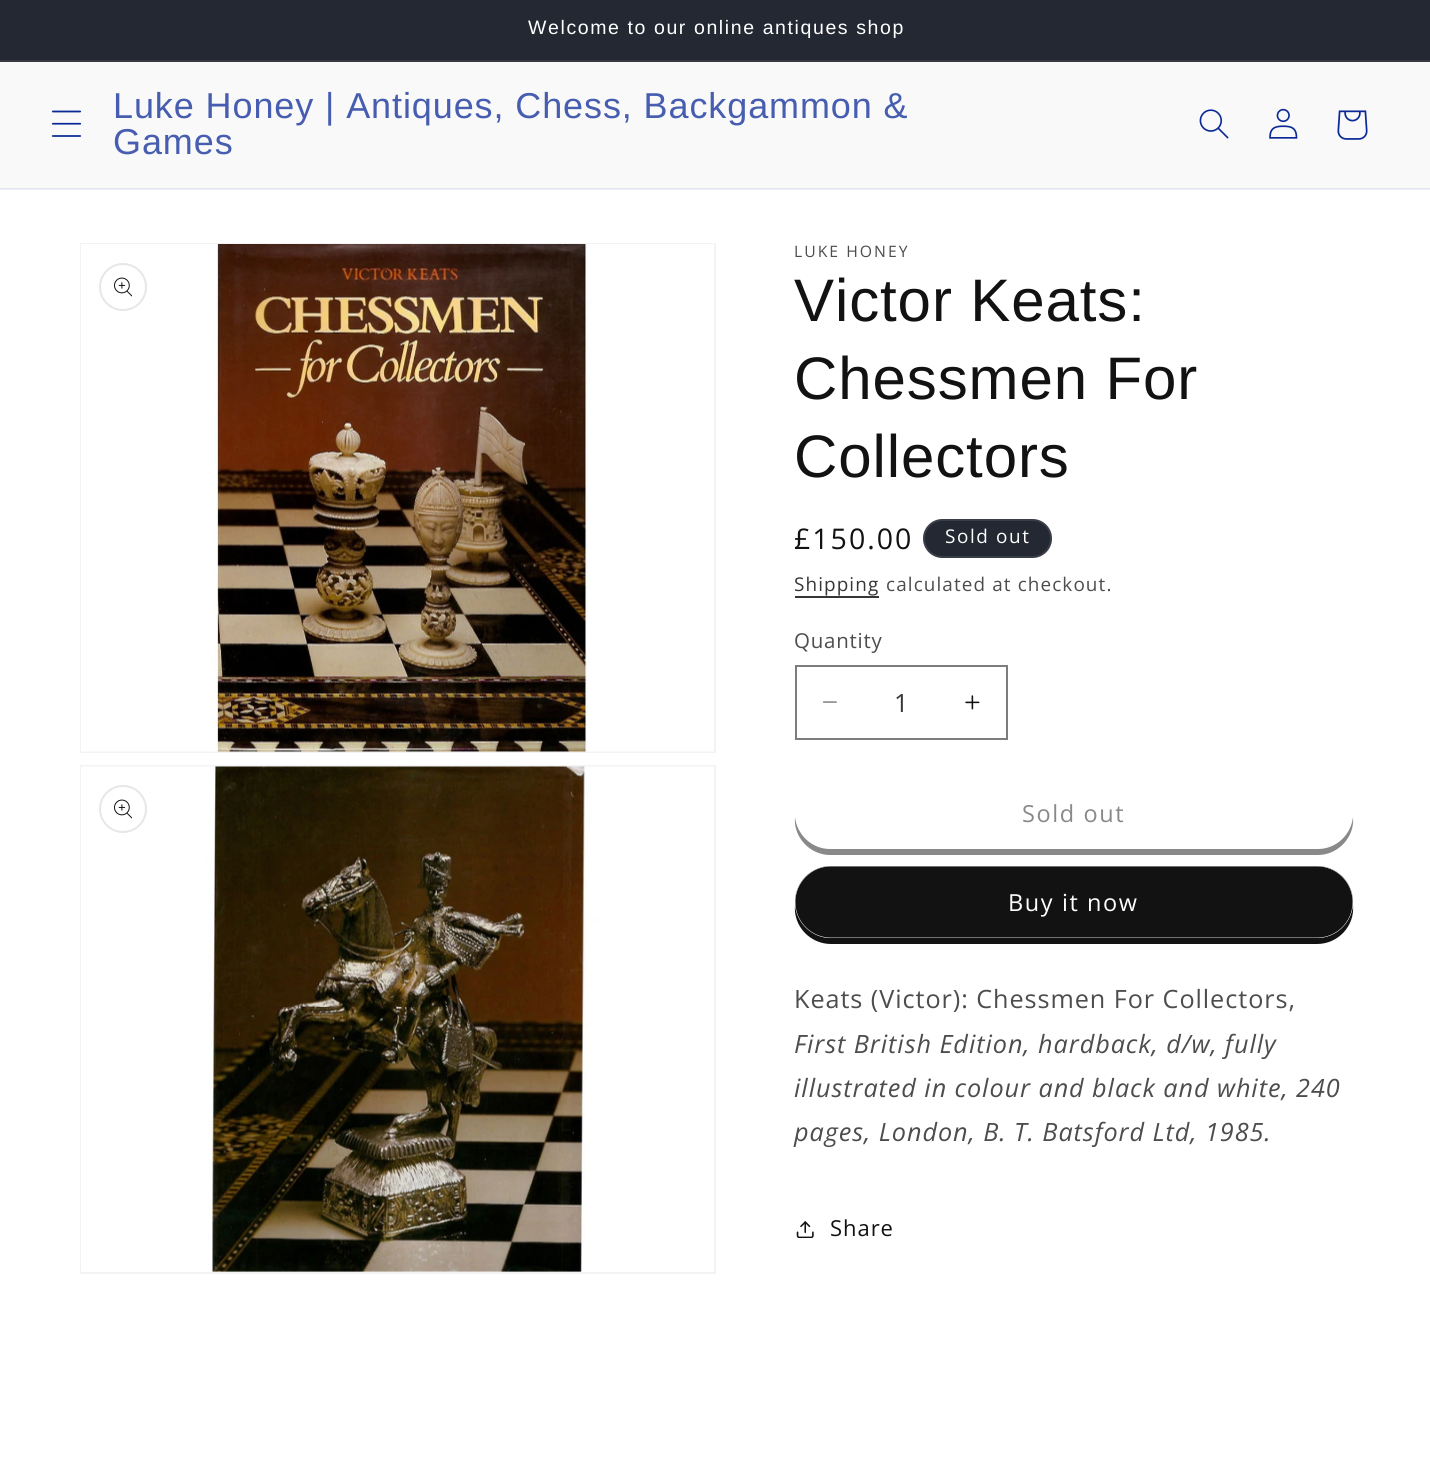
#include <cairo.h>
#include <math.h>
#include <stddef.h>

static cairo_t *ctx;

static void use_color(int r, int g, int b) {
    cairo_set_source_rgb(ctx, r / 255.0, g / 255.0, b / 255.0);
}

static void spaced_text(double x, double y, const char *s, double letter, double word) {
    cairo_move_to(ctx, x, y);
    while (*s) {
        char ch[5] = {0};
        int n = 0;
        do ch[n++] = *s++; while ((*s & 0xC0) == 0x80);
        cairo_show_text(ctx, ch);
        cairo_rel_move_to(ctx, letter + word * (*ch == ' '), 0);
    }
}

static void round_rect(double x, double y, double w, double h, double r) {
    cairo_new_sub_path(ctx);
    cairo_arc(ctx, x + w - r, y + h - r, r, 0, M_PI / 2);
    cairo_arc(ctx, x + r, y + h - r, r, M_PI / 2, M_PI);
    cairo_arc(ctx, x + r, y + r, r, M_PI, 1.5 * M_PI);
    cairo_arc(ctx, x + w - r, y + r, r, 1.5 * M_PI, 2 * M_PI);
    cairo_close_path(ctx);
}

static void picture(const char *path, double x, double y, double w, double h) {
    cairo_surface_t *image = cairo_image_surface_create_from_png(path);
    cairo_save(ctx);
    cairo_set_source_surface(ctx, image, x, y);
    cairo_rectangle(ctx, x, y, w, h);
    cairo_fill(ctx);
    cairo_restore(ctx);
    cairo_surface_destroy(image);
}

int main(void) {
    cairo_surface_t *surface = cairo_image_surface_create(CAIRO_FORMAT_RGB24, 1430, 1472);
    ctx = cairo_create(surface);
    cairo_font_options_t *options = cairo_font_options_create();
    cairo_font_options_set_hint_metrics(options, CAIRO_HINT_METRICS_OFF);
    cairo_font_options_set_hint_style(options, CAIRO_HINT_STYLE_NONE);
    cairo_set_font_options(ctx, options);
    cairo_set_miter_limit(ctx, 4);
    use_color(255, 255, 255);
    cairo_paint(ctx);
    use_color(235, 238, 247);
    cairo_rectangle(ctx, 0, 189, 1430, 1);
    cairo_fill(ctx);
    use_color(36, 40, 51);
    cairo_rectangle(ctx, 0, 0, 1430, 60);
    cairo_fill(ctx);
    use_color(54, 57, 67);
    cairo_rectangle(ctx, 0, 60, 1430, 2);
    cairo_fill(ctx);
    cairo_select_font_face(ctx, "Liberation Sans", CAIRO_FONT_SLANT_NORMAL, CAIRO_FONT_WEIGHT_NORMAL);
    cairo_set_font_size(ctx, 19.5);
    use_color(255, 255, 255);
    spaced_text(528, 34, "Welcome to our online antiques shop", 1.6, 0);
    use_color(249, 249, 249);
    cairo_rectangle(ctx, 0, 62, 1430, 126);
    cairo_fill(ctx);
    use_color(230, 232, 241);
    cairo_rectangle(ctx, 0, 188, 1430, 1);
    cairo_fill(ctx);
    picture("img1.png", 51, 110, 31, 27);
    cairo_set_font_size(ctx, 36);
    use_color(71, 93, 175);
    spaced_text(113, 118, "Luke Honey | Antiques, Chess, Backgammon &", 0.9, 0);
    spaced_text(113, 154, "Games", 0.9, 0);
    picture("img2.png", 1199, 109, 30, 30);
    picture("img3.png", 1269, 108, 29, 31);
    picture("img4.png", 1337, 110, 31, 30);
    cairo_rectangle(ctx, 81, 244, 634, 508);
    use_color(243, 243, 243);
    cairo_stroke(ctx);
    picture("img5.png", 81, 244, 633, 508);
    cairo_arc(ctx, 123, 287, 23, 0, 2 * M_PI);
    use_color(231, 231, 231);
    cairo_stroke(ctx);
    picture("img6.png", 114, 277, 18, 20);
    cairo_rectangle(ctx, 81, 766, 634, 507);
    use_color(243, 243, 243);
    cairo_stroke(ctx);
    picture("img7.png", 81, 766, 633, 506);
    cairo_arc(ctx, 123, 809, 23, 0, 2 * M_PI);
    use_color(231, 231, 231);
    cairo_stroke(ctx);
    picture("img6.png", 114, 799, 18, 20);
    cairo_select_font_face(ctx, "Open Sans", CAIRO_FONT_SLANT_NORMAL, CAIRO_FONT_WEIGHT_NORMAL);
    cairo_set_font_size(ctx, 15.75);
    use_color(77, 77, 77);
    spaced_text(794, 257, "LUKE HONEY", 2, 0);
    cairo_select_font_face(ctx, "Liberation Sans", CAIRO_FONT_SLANT_NORMAL, CAIRO_FONT_WEIGHT_NORMAL);
    cairo_set_font_size(ctx, 60);
    use_color(18, 18, 18);
    spaced_text(794, 321, "Victor Keats:", 0.9, 0);
    spaced_text(794, 399, "Chessmen For", 0.9, 0);
    spaced_text(794, 477, "Collectors", 0.9, 0);
    cairo_select_font_face(ctx, "Open Sans", CAIRO_FONT_SLANT_NORMAL, CAIRO_FONT_WEIGHT_NORMAL);
    cairo_set_font_size(ctx, 28.5);
    spaced_text(794, 549, "£150.00", 2, 0);
    use_color(36, 40, 51);
    round_rect(923, 519, 129, 39, 19.5);
    cairo_fill(ctx);
    round_rect(924, 520, 127, 37, 18.5);
    cairo_set_source_rgba(ctx, 1, 1, 1, 0.1);
    cairo_stroke(ctx);
    cairo_set_font_size(ctx, 18.9);
    use_color(255, 255, 255);
    spaced_text(945, 543, "Sold out", 1.6, 0);
    use_color(54, 54, 54);
    spaced_text(794, 591, "Shipping", 1.1, 0);
    cairo_rectangle(ctx, 795, 596, 84, 2);
    cairo_fill(ctx);
    use_color(77, 77, 77);
    spaced_text(886, 591, "calculated at checkout.", 1.1, 0);
    cairo_set_font_size(ctx, 20.5);
    spaced_text(794, 648, "Quantity", 0.75, 0);
    picture("img8.png", 822, 701, 15, 2);
    picture("img9.png", 965, 695, 15, 15);
    cairo_rectangle(ctx, 796, 666, 211, 73);
    use_color(125, 125, 125);
    cairo_stroke(ctx);
    cairo_set_font_size(ctx, 25.2);
    use_color(54, 54, 54);
    cairo_move_to(ctx, 894, 712);
    cairo_show_text(ctx, "1");
    use_color(137, 137, 137);
    cairo_new_path(ctx);
    cairo_move_to(ctx, 795, 817);
    cairo_curve_to(ctx, 793, 837, 810, 855, 830, 855);
    cairo_line_to(ctx, 1318, 855);
    cairo_curve_to(ctx, 1338, 855, 1355, 837, 1353, 817);
    cairo_curve_to(ctx, 1351, 835, 1336, 849, 1318, 849);
    cairo_line_to(ctx, 830, 849);
    cairo_curve_to(ctx, 812, 849, 797, 835, 795, 817);
    cairo_close_path(ctx);
    cairo_fill(ctx);
    cairo_set_font_size(ctx, 23.5);
    spaced_text(1022, 822, "Sold out", 1.6, 0);
    use_color(18, 18, 18);
    cairo_new_path(ctx);
    cairo_move_to(ctx, 795, 905);
    cairo_curve_to(ctx, 793, 926, 810, 944, 831, 944);
    cairo_line_to(ctx, 1317, 944);
    cairo_curve_to(ctx, 1338, 944, 1355, 926, 1353, 905);
    cairo_curve_to(ctx, 1351, 923, 1336, 938, 1317, 938);
    cairo_line_to(ctx, 831, 938);
    cairo_curve_to(ctx, 812, 938, 797, 923, 795, 905);
    cairo_close_path(ctx);
    cairo_fill(ctx);
    round_rect(795, 866, 558, 72, 36);
    cairo_fill(ctx);
    round_rect(795.2, 866.2, 557.6, 71.6, 35.8);
    use_color(255, 255, 255);
    cairo_set_line_width(ctx, 0.4);
    cairo_stroke(ctx);
    spaced_text(1008, 911, "Buy it now", 1.6, 0);
    cairo_set_font_size(ctx, 25.2);
    use_color(77, 77, 77);
    spaced_text(794, 1008, "Keats (Victor): Chessmen For Collectors,", 0.95, 0);
    cairo_select_font_face(ctx, "Open Sans", CAIRO_FONT_SLANT_ITALIC, CAIRO_FONT_WEIGHT_NORMAL);
    spaced_text(794, 1053, "First British Edition, hardback, d/w, fully", 0.95, 0);
    spaced_text(794, 1097, "illustrated in colour and black and white, 240", 0.95, 0);
    spaced_text(794, 1141, "pages, London, B. T. Batsford Ltd, 1985.", 0.95, 0);
    picture("img10.png", 796, 1221, 18, 17);
    cairo_select_font_face(ctx, "Open Sans", CAIRO_FONT_SLANT_NORMAL, CAIRO_FONT_WEIGHT_NORMAL);
    cairo_set_font_size(ctx, 22);
    use_color(18, 18, 18);
    spaced_text(830, 1236, "Share", 0.95, 0);
    cairo_surface_write_to_png(surface, "result.png");
    cairo_font_options_destroy(options);
    cairo_destroy(ctx);
    cairo_surface_destroy(surface);
    return 0;
}
